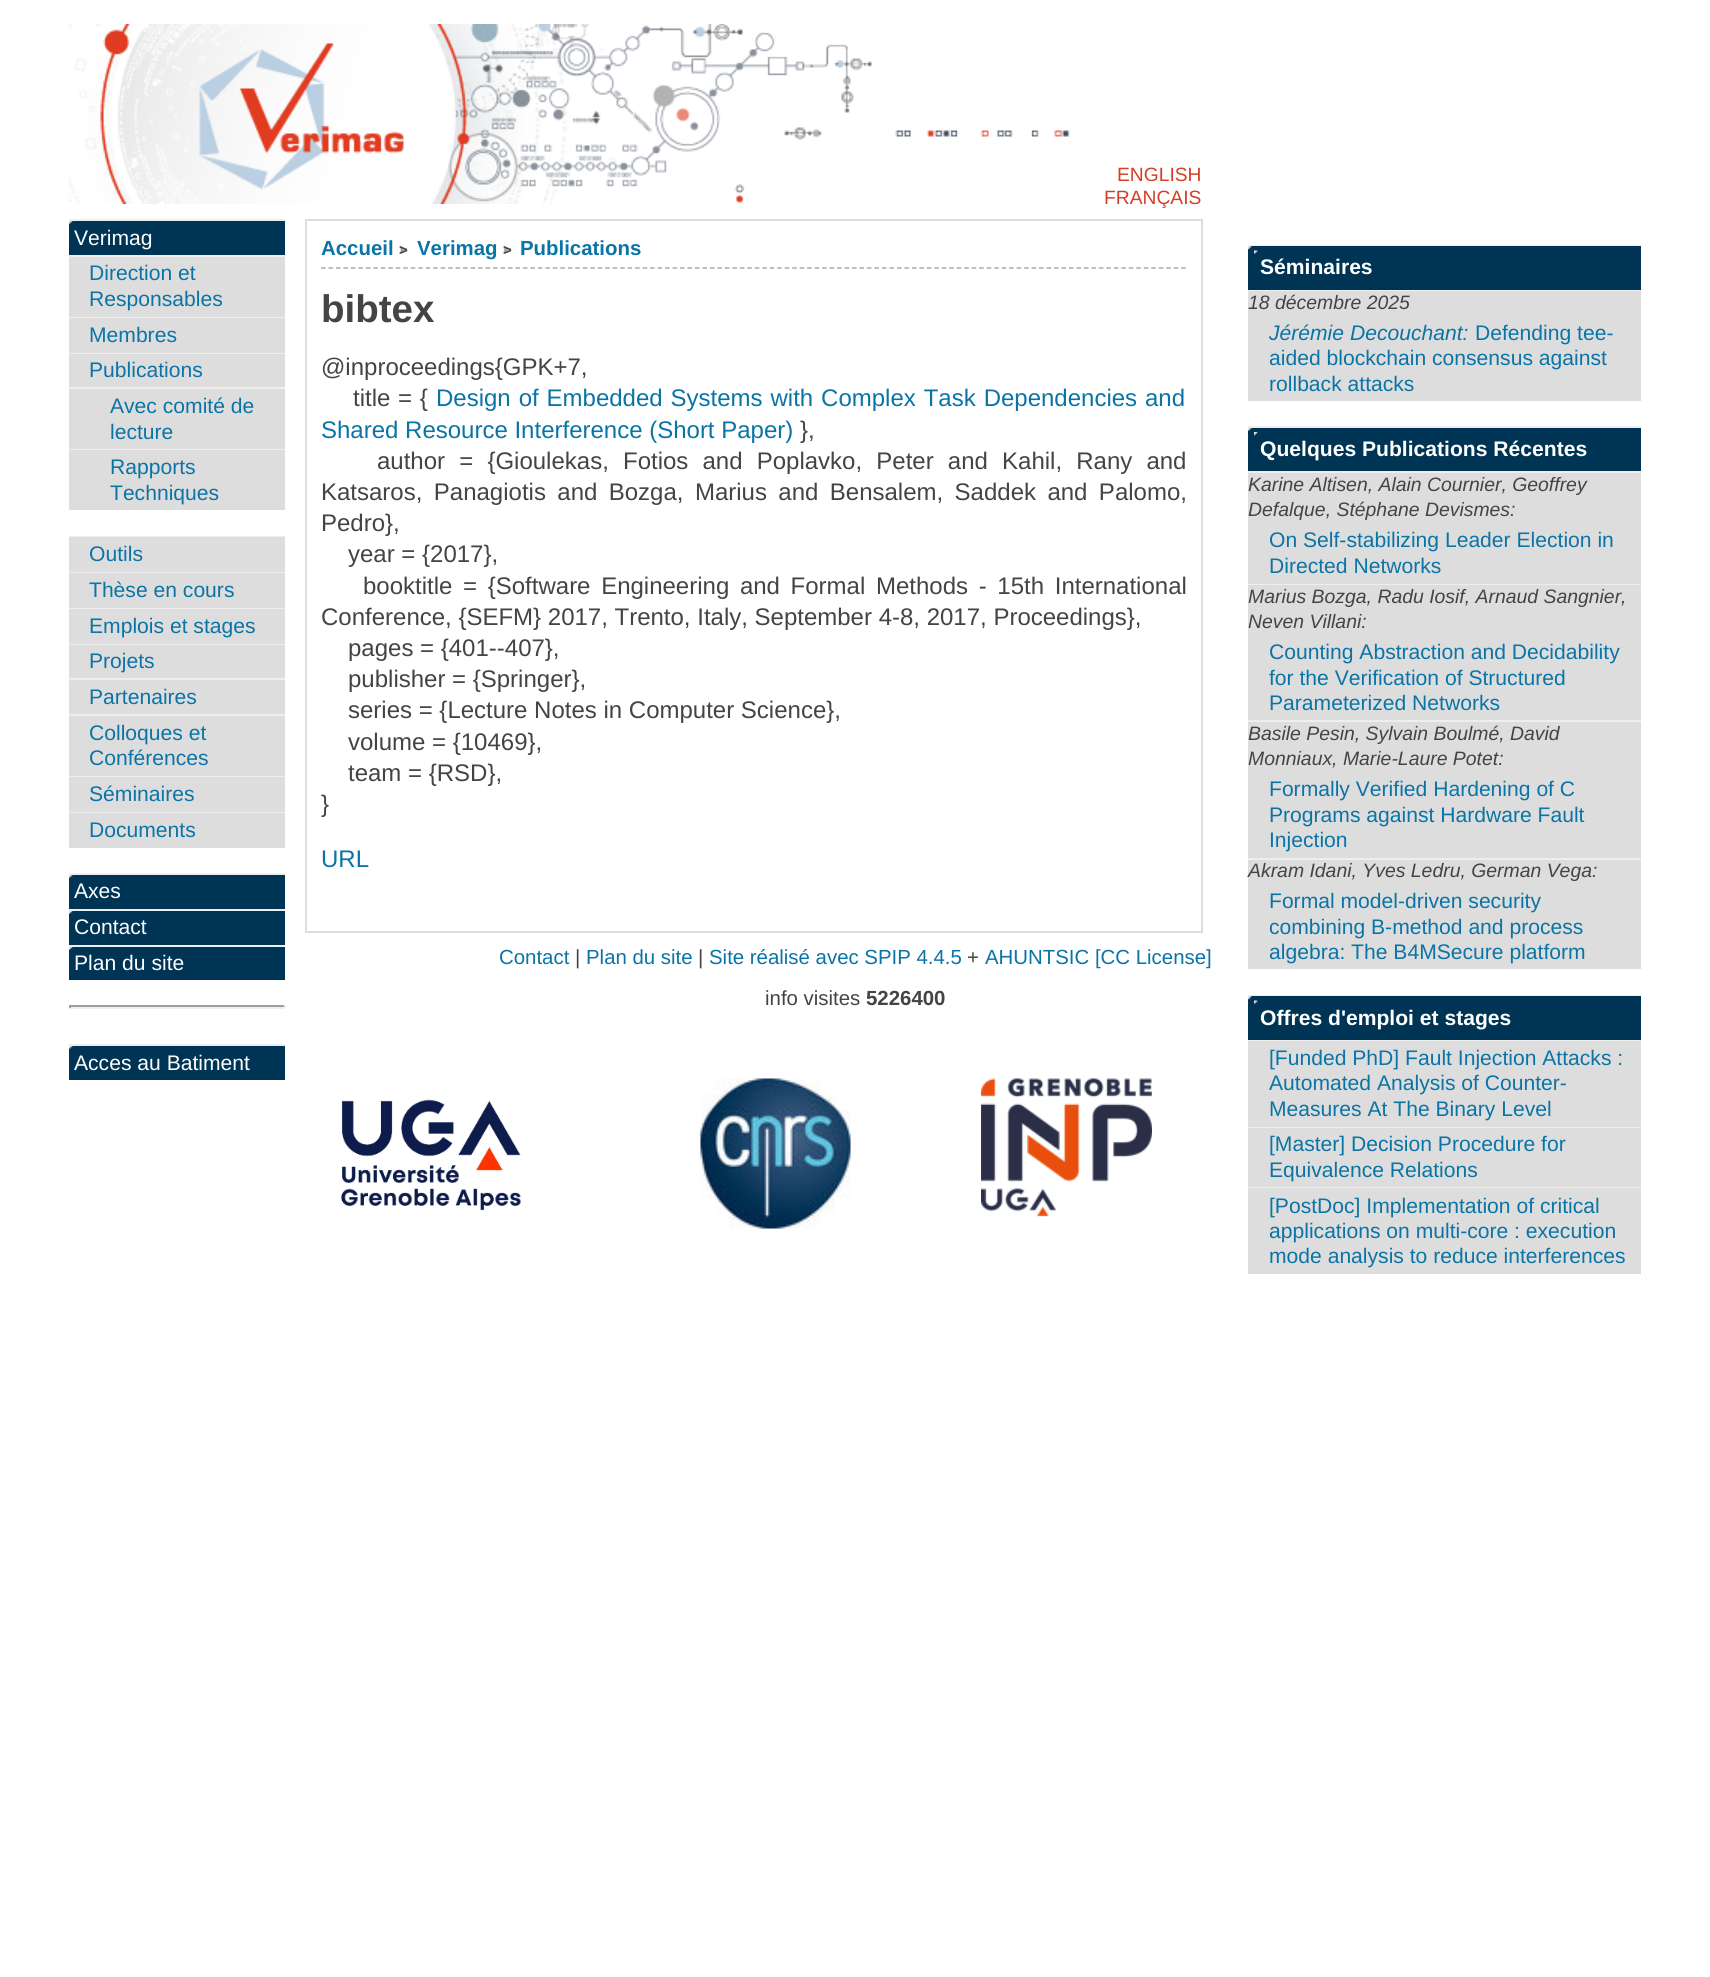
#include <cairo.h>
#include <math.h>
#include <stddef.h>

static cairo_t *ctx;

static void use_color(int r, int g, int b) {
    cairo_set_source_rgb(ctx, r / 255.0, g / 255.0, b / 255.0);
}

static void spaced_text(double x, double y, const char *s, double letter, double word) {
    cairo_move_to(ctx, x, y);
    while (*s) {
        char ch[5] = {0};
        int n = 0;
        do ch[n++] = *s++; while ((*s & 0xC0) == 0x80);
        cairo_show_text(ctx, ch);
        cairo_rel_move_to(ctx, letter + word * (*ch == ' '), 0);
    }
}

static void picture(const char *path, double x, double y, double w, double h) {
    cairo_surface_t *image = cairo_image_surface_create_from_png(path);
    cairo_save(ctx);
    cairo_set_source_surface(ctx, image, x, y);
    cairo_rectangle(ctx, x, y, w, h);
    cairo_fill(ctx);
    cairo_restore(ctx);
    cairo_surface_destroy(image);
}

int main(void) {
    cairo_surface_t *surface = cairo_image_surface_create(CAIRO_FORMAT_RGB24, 1710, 1977);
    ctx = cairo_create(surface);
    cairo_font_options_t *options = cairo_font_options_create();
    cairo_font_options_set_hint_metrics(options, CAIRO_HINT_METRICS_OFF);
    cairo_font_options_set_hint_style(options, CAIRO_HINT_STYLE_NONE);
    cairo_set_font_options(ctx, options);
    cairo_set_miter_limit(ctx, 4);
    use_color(255, 255, 255);
    cairo_paint(ctx);
    picture("img1.png", 69, 24, 1001, 180);
    cairo_select_font_face(ctx, "Liberation Sans", CAIRO_FONT_SLANT_NORMAL, CAIRO_FONT_WEIGHT_NORMAL);
    cairo_set_font_size(ctx, 19.25);
    use_color(212, 64, 38);
    cairo_move_to(ctx, 1117, 181);
    cairo_show_text(ctx, "ENGLISH");
    cairo_move_to(ctx, 1104, 204);
    cairo_show_text(ctx, "FRANÇAIS");
    use_color(238, 238, 238);
    cairo_rectangle(ctx, 69, 219, 216, 2);
    cairo_fill(ctx);
    use_color(0, 52, 84);
    cairo_rectangle(ctx, 69, 221, 216, 34);
    cairo_fill(ctx);
    picture("img2.png", 69, 220, 4, 4);
    cairo_set_font_size(ctx, 21.1);
    use_color(255, 255, 255);
    cairo_move_to(ctx, 74, 245);
    cairo_show_text(ctx, "Verimag");
    use_color(238, 238, 238);
    cairo_rectangle(ctx, 69, 255, 216, 2);
    cairo_fill(ctx);
    use_color(221, 221, 221);
    cairo_rectangle(ctx, 69, 257, 216, 60);
    cairo_fill(ctx);
    picture("img3.png", 69, 256, 3, 2);
    use_color(10, 116, 166);
    cairo_move_to(ctx, 89, 280);
    cairo_show_text(ctx, "Direction et");
    cairo_move_to(ctx, 89, 306);
    cairo_show_text(ctx, "Responsables");
    use_color(238, 238, 238);
    cairo_rectangle(ctx, 69, 317, 216, 1);
    cairo_fill(ctx);
    use_color(221, 221, 221);
    cairo_rectangle(ctx, 69, 318, 216, 35);
    cairo_fill(ctx);
    use_color(10, 116, 166);
    cairo_move_to(ctx, 89, 342);
    cairo_show_text(ctx, "Membres");
    use_color(238, 238, 238);
    cairo_rectangle(ctx, 69, 353, 216, 1);
    cairo_fill(ctx);
    use_color(221, 221, 221);
    cairo_rectangle(ctx, 69, 354, 216, 33);
    cairo_fill(ctx);
    use_color(10, 116, 166);
    cairo_move_to(ctx, 89, 377);
    cairo_show_text(ctx, "Publications");
    use_color(238, 238, 238);
    cairo_rectangle(ctx, 69, 387, 216, 2);
    cairo_fill(ctx);
    use_color(221, 221, 221);
    cairo_rectangle(ctx, 69, 389, 216, 60);
    cairo_fill(ctx);
    picture("img3.png", 69, 388, 3, 2);
    use_color(10, 116, 166);
    cairo_move_to(ctx, 110, 413);
    cairo_show_text(ctx, "Avec comité de");
    cairo_move_to(ctx, 110, 439);
    cairo_show_text(ctx, "lecture");
    use_color(238, 238, 238);
    cairo_rectangle(ctx, 69, 449, 216, 1);
    cairo_fill(ctx);
    use_color(221, 221, 221);
    cairo_rectangle(ctx, 69, 450, 216, 60);
    cairo_fill(ctx);
    use_color(10, 116, 166);
    cairo_move_to(ctx, 110, 474);
    cairo_show_text(ctx, "Rapports");
    cairo_move_to(ctx, 110, 500);
    cairo_show_text(ctx, "Techniques");
    use_color(238, 238, 238);
    cairo_rectangle(ctx, 69, 536, 216, 1);
    cairo_fill(ctx);
    use_color(221, 221, 221);
    cairo_rectangle(ctx, 69, 537, 216, 35);
    cairo_fill(ctx);
    use_color(10, 116, 166);
    cairo_move_to(ctx, 89, 561);
    cairo_show_text(ctx, "Outils");
    use_color(238, 238, 238);
    cairo_rectangle(ctx, 69, 572, 216, 1);
    cairo_fill(ctx);
    use_color(221, 221, 221);
    cairo_rectangle(ctx, 69, 573, 216, 35);
    cairo_fill(ctx);
    use_color(10, 116, 166);
    cairo_move_to(ctx, 89, 597);
    cairo_show_text(ctx, "Thèse en cours");
    use_color(238, 238, 238);
    cairo_rectangle(ctx, 69, 608, 216, 1);
    cairo_fill(ctx);
    use_color(221, 221, 221);
    cairo_rectangle(ctx, 69, 609, 216, 35);
    cairo_fill(ctx);
    use_color(10, 116, 166);
    cairo_move_to(ctx, 89, 633);
    cairo_show_text(ctx, "Emplois et stages");
    use_color(238, 238, 238);
    cairo_rectangle(ctx, 69, 644, 216, 1);
    cairo_fill(ctx);
    use_color(221, 221, 221);
    cairo_rectangle(ctx, 69, 645, 216, 33);
    cairo_fill(ctx);
    use_color(10, 116, 166);
    cairo_move_to(ctx, 89, 668);
    cairo_show_text(ctx, "Projets");
    use_color(238, 238, 238);
    cairo_rectangle(ctx, 69, 678, 216, 2);
    cairo_fill(ctx);
    use_color(221, 221, 221);
    cairo_rectangle(ctx, 69, 680, 216, 34);
    cairo_fill(ctx);
    picture("img3.png", 69, 679, 3, 2);
    use_color(10, 116, 166);
    cairo_move_to(ctx, 89, 704);
    cairo_show_text(ctx, "Partenaires");
    use_color(238, 238, 238);
    cairo_rectangle(ctx, 69, 714, 216, 2);
    cairo_fill(ctx);
    use_color(221, 221, 221);
    cairo_rectangle(ctx, 69, 716, 216, 60);
    cairo_fill(ctx);
    picture("img3.png", 69, 715, 3, 2);
    use_color(10, 116, 166);
    cairo_move_to(ctx, 89, 740);
    cairo_show_text(ctx, "Colloques et");
    cairo_move_to(ctx, 89, 765);
    cairo_show_text(ctx, "Conférences");
    use_color(238, 238, 238);
    cairo_rectangle(ctx, 69, 776, 216, 1);
    cairo_fill(ctx);
    use_color(221, 221, 221);
    cairo_rectangle(ctx, 69, 777, 216, 35);
    cairo_fill(ctx);
    use_color(10, 116, 166);
    cairo_move_to(ctx, 89, 801);
    cairo_show_text(ctx, "Séminaires");
    use_color(238, 238, 238);
    cairo_rectangle(ctx, 69, 812, 216, 1);
    cairo_fill(ctx);
    use_color(221, 221, 221);
    cairo_rectangle(ctx, 69, 813, 216, 35);
    cairo_fill(ctx);
    use_color(10, 116, 166);
    cairo_move_to(ctx, 89, 837);
    cairo_show_text(ctx, "Documents");
    use_color(238, 238, 238);
    cairo_rectangle(ctx, 69, 873, 216, 2);
    cairo_fill(ctx);
    use_color(0, 52, 84);
    cairo_rectangle(ctx, 69, 875, 216, 34);
    cairo_fill(ctx);
    picture("img2.png", 69, 874, 4, 4);
    use_color(255, 255, 255);
    cairo_move_to(ctx, 74, 898);
    cairo_show_text(ctx, "Axes");
    use_color(238, 238, 238);
    cairo_rectangle(ctx, 69, 909, 216, 2);
    cairo_fill(ctx);
    use_color(0, 52, 84);
    cairo_rectangle(ctx, 69, 911, 216, 34);
    cairo_fill(ctx);
    picture("img2.png", 69, 910, 4, 4);
    use_color(255, 255, 255);
    cairo_move_to(ctx, 74, 934);
    cairo_show_text(ctx, "Contact");
    use_color(238, 238, 238);
    cairo_rectangle(ctx, 69, 945, 216, 2);
    cairo_fill(ctx);
    use_color(0, 52, 84);
    cairo_rectangle(ctx, 69, 947, 216, 33);
    cairo_fill(ctx);
    picture("img2.png", 69, 946, 4, 4);
    use_color(255, 255, 255);
    cairo_move_to(ctx, 74, 970);
    cairo_show_text(ctx, "Plan du site");
    use_color(159, 159, 159);
    cairo_rectangle(ctx, 69, 1005, 216, 2);
    cairo_fill(ctx);
    use_color(238, 238, 238);
    cairo_rectangle(ctx, 284, 1005, 2, 3);
    cairo_fill(ctx);
    cairo_rectangle(ctx, 69, 1007, 216, 2);
    cairo_fill(ctx);
    use_color(159, 159, 159);
    cairo_rectangle(ctx, 69, 1005, 2, 3);
    cairo_fill(ctx);
    use_color(238, 238, 238);
    cairo_rectangle(ctx, 69, 1044, 216, 2);
    cairo_fill(ctx);
    use_color(0, 52, 84);
    cairo_rectangle(ctx, 69, 1046, 216, 34);
    cairo_fill(ctx);
    picture("img2.png", 69, 1045, 4, 4);
    use_color(255, 255, 255);
    cairo_move_to(ctx, 74, 1070);
    cairo_show_text(ctx, "Acces au Batiment");
    cairo_rectangle(ctx, 306, 220, 896, 712);
    use_color(222, 222, 222);
    cairo_stroke(ctx);
    cairo_select_font_face(ctx, "Liberation Sans", CAIRO_FONT_SLANT_NORMAL, CAIRO_FONT_WEIGHT_BOLD);
    cairo_set_font_size(ctx, 20.4);
    use_color(10, 116, 166);
    cairo_move_to(ctx, 321, 255);
    cairo_show_text(ctx, "Accueil");
    picture("img4.png", 400, 245, 6, 9);
    cairo_move_to(ctx, 417, 255);
    cairo_show_text(ctx, "Verimag");
    picture("img5.png", 503, 245, 6, 9);
    cairo_move_to(ctx, 520, 255);
    cairo_show_text(ctx, "Publications");
    cairo_set_font_size(ctx, 15);
    use_color(68, 68, 68);
    cairo_move_to(ctx, 399, 255);
    cairo_show_text(ctx, ">");
    cairo_move_to(ctx, 503, 255);
    cairo_show_text(ctx, ">");
    cairo_new_path(ctx);
    cairo_move_to(ctx, 321, 268);
    cairo_line_to(ctx, 1186.5, 268);
    use_color(170, 170, 170);
    cairo_set_line_width(ctx, 1.5);
    cairo_set_dash(ctx, (double[]){4.5, 2.98}, 2, 0);
    cairo_stroke(ctx);
    cairo_set_font_size(ctx, 38.5);
    use_color(68, 68, 68);
    cairo_move_to(ctx, 321, 322);
    cairo_show_text(ctx, "bibtex");
    cairo_select_font_face(ctx, "Liberation Sans", CAIRO_FONT_SLANT_NORMAL, CAIRO_FONT_WEIGHT_NORMAL);
    cairo_set_font_size(ctx, 24);
    cairo_move_to(ctx, 321, 375);
    cairo_show_text(ctx, "@inproceedings{GPK+7,");
    spaced_text(353, 406, "title = {", 0, 1);
    use_color(10, 116, 166);
    spaced_text(436, 406, "Design of Embedded Systems with Complex Task Dependencies and", 0, 1.25);
    cairo_move_to(ctx, 321, 438);
    cairo_show_text(ctx, "Shared Resource Interference (Short Paper)");
    use_color(68, 68, 68);
    cairo_move_to(ctx, 800, 438);
    cairo_show_text(ctx, "},");
    spaced_text(377, 469, "author = {Gioulekas, Fotios and Poplavko, Peter and Kahil, Rany and", 0, 7.5);
    spaced_text(321, 500, "Katsaros, Panagiotis and Bozga, Marius and Bensalem, Saddek and Palomo,", 0, 4.75);
    cairo_move_to(ctx, 321, 531);
    cairo_show_text(ctx, "Pedro},");
    cairo_move_to(ctx, 348, 562);
    cairo_show_text(ctx, "year = {2017},");
    spaced_text(363, 594, "booktitle = {Software Engineering and Formal Methods - 15th International", 0, 4);
    cairo_move_to(ctx, 321, 625);
    cairo_show_text(ctx, "Conference, {SEFM} 2017, Trento, Italy, September 4-8, 2017, Proceedings},");
    cairo_move_to(ctx, 348, 656);
    cairo_show_text(ctx, "pages = {401--407},");
    cairo_move_to(ctx, 348, 687);
    cairo_show_text(ctx, "publisher = {Springer},");
    cairo_move_to(ctx, 348, 718);
    cairo_show_text(ctx, "series = {Lecture Notes in Computer Science},");
    cairo_move_to(ctx, 348, 750);
    cairo_show_text(ctx, "volume = {10469},");
    cairo_move_to(ctx, 348, 781);
    cairo_show_text(ctx, "team = {RSD},");
    cairo_move_to(ctx, 321, 812);
    cairo_show_text(ctx, "}");
    use_color(10, 116, 166);
    cairo_move_to(ctx, 321, 867);
    cairo_show_text(ctx, "URL");
    use_color(238, 238, 238);
    cairo_rectangle(ctx, 1248, 245, 393, 1);
    cairo_fill(ctx);
    use_color(0, 52, 84);
    cairo_rectangle(ctx, 1248, 246, 393, 44);
    cairo_fill(ctx);
    picture("img6.png", 1248, 246, 4, 4);
    picture("img7.png", 1254, 250, 4, 4);
    cairo_select_font_face(ctx, "Liberation Sans", CAIRO_FONT_SLANT_NORMAL, CAIRO_FONT_WEIGHT_BOLD);
    cairo_set_font_size(ctx, 21.1);
    use_color(255, 255, 255);
    cairo_move_to(ctx, 1260, 274);
    cairo_show_text(ctx, "Séminaires");
    use_color(238, 238, 238);
    cairo_rectangle(ctx, 1248, 290, 393, 1);
    cairo_fill(ctx);
    use_color(221, 221, 221);
    cairo_rectangle(ctx, 1248, 291, 393, 110);
    cairo_fill(ctx);
    cairo_select_font_face(ctx, "Liberation Sans", CAIRO_FONT_SLANT_ITALIC, CAIRO_FONT_WEIGHT_NORMAL);
    cairo_set_font_size(ctx, 19.4);
    use_color(68, 68, 68);
    cairo_move_to(ctx, 1248, 309);
    cairo_show_text(ctx, "18 décembre 2025");
    picture("img8.png", 1248, 317, 3, 1);
    cairo_set_font_size(ctx, 21.1);
    use_color(10, 116, 166);
    cairo_move_to(ctx, 1269, 340);
    cairo_show_text(ctx, "Jérémie Decouchant:");
    cairo_select_font_face(ctx, "Liberation Sans", CAIRO_FONT_SLANT_NORMAL, CAIRO_FONT_WEIGHT_NORMAL);
    cairo_move_to(ctx, 1475, 340);
    cairo_show_text(ctx, "Defending tee-");
    cairo_move_to(ctx, 1269, 365);
    cairo_show_text(ctx, "aided blockchain consensus against");
    cairo_move_to(ctx, 1269, 391);
    cairo_show_text(ctx, "rollback attacks");
    use_color(238, 238, 238);
    cairo_rectangle(ctx, 1248, 426, 393, 2);
    cairo_fill(ctx);
    use_color(0, 52, 84);
    cairo_rectangle(ctx, 1248, 428, 393, 43);
    cairo_fill(ctx);
    picture("img9.png", 1248, 427, 4, 4);
    picture("img6.png", 1254, 432, 4, 4);
    cairo_select_font_face(ctx, "Liberation Sans", CAIRO_FONT_SLANT_NORMAL, CAIRO_FONT_WEIGHT_BOLD);
    use_color(255, 255, 255);
    cairo_move_to(ctx, 1260, 456);
    cairo_show_text(ctx, "Quelques Publications Récentes");
    use_color(238, 238, 238);
    cairo_rectangle(ctx, 1248, 471, 393, 2);
    cairo_fill(ctx);
    use_color(221, 221, 221);
    cairo_rectangle(ctx, 1248, 473, 393, 111);
    cairo_fill(ctx);
    cairo_select_font_face(ctx, "Liberation Sans", CAIRO_FONT_SLANT_ITALIC, CAIRO_FONT_WEIGHT_NORMAL);
    cairo_set_font_size(ctx, 19.4);
    use_color(68, 68, 68);
    cairo_move_to(ctx, 1248, 491);
    cairo_show_text(ctx, "Karine Altisen, Alain Cournier, Geoffrey");
    cairo_move_to(ctx, 1248, 516);
    cairo_show_text(ctx, "Defalque, Stéphane Devismes:");
    picture("img8.png", 1248, 524, 3, 1);
    cairo_select_font_face(ctx, "Liberation Sans", CAIRO_FONT_SLANT_NORMAL, CAIRO_FONT_WEIGHT_NORMAL);
    cairo_set_font_size(ctx, 21.1);
    use_color(10, 116, 166);
    cairo_move_to(ctx, 1269, 547);
    cairo_show_text(ctx, "On Self-stabilizing Leader Election in");
    cairo_move_to(ctx, 1269, 573);
    cairo_show_text(ctx, "Directed Networks");
    use_color(238, 238, 238);
    cairo_rectangle(ctx, 1248, 584, 393, 1);
    cairo_fill(ctx);
    use_color(221, 221, 221);
    cairo_rectangle(ctx, 1248, 585, 393, 135);
    cairo_fill(ctx);
    cairo_select_font_face(ctx, "Liberation Sans", CAIRO_FONT_SLANT_ITALIC, CAIRO_FONT_WEIGHT_NORMAL);
    cairo_set_font_size(ctx, 19.4);
    use_color(68, 68, 68);
    cairo_move_to(ctx, 1248, 603);
    cairo_show_text(ctx, "Marius Bozga, Radu Iosif, Arnaud Sangnier,");
    cairo_move_to(ctx, 1248, 628);
    cairo_show_text(ctx, "Neven Villani:");
    picture("img8.png", 1248, 635, 3, 1);
    cairo_select_font_face(ctx, "Liberation Sans", CAIRO_FONT_SLANT_NORMAL, CAIRO_FONT_WEIGHT_NORMAL);
    cairo_set_font_size(ctx, 21.1);
    use_color(10, 116, 166);
    cairo_move_to(ctx, 1269, 659);
    cairo_show_text(ctx, "Counting Abstraction and Decidability");
    cairo_move_to(ctx, 1269, 685);
    cairo_show_text(ctx, "for the Verification of Structured");
    cairo_move_to(ctx, 1269, 710);
    cairo_show_text(ctx, "Parameterized Networks");
    use_color(238, 238, 238);
    cairo_rectangle(ctx, 1248, 720, 393, 2);
    cairo_fill(ctx);
    use_color(221, 221, 221);
    cairo_rectangle(ctx, 1248, 722, 393, 136);
    cairo_fill(ctx);
    cairo_select_font_face(ctx, "Liberation Sans", CAIRO_FONT_SLANT_ITALIC, CAIRO_FONT_WEIGHT_NORMAL);
    cairo_set_font_size(ctx, 19.4);
    use_color(68, 68, 68);
    cairo_move_to(ctx, 1248, 740);
    cairo_show_text(ctx, "Basile Pesin, Sylvain Boulmé, David");
    cairo_move_to(ctx, 1248, 765);
    cairo_show_text(ctx, "Monniaux, Marie-Laure Potet:");
    picture("img8.png", 1248, 773, 3, 1);
    cairo_select_font_face(ctx, "Liberation Sans", CAIRO_FONT_SLANT_NORMAL, CAIRO_FONT_WEIGHT_NORMAL);
    cairo_set_font_size(ctx, 21.1);
    use_color(10, 116, 166);
    cairo_move_to(ctx, 1269, 796);
    cairo_show_text(ctx, "Formally Verified Hardening of C");
    cairo_move_to(ctx, 1269, 822);
    cairo_show_text(ctx, "Programs against Hardware Fault");
    cairo_move_to(ctx, 1269, 847);
    cairo_show_text(ctx, "Injection");
    use_color(238, 238, 238);
    cairo_rectangle(ctx, 1248, 858, 393, 2);
    cairo_fill(ctx);
    use_color(221, 221, 221);
    cairo_rectangle(ctx, 1248, 860, 393, 109);
    cairo_fill(ctx);
    cairo_select_font_face(ctx, "Liberation Sans", CAIRO_FONT_SLANT_ITALIC, CAIRO_FONT_WEIGHT_NORMAL);
    cairo_set_font_size(ctx, 19.4);
    use_color(68, 68, 68);
    cairo_move_to(ctx, 1248, 877);
    cairo_show_text(ctx, "Akram Idani, Yves Ledru, German Vega:");
    picture("img8.png", 1248, 884, 3, 1);
    cairo_select_font_face(ctx, "Liberation Sans", CAIRO_FONT_SLANT_NORMAL, CAIRO_FONT_WEIGHT_NORMAL);
    cairo_set_font_size(ctx, 21.1);
    use_color(10, 116, 166);
    cairo_move_to(ctx, 1269, 908);
    cairo_show_text(ctx, "Formal model-driven security");
    cairo_move_to(ctx, 1269, 934);
    cairo_show_text(ctx, "combining B-method and process");
    cairo_move_to(ctx, 1269, 959);
    cairo_show_text(ctx, "algebra: The B4MSecure platform");
    use_color(238, 238, 238);
    cairo_rectangle(ctx, 1248, 995, 393, 1);
    cairo_fill(ctx);
    use_color(0, 52, 84);
    cairo_rectangle(ctx, 1248, 996, 393, 44);
    cairo_fill(ctx);
    picture("img6.png", 1248, 996, 4, 4);
    picture("img7.png", 1254, 1000, 4, 4);
    cairo_select_font_face(ctx, "Liberation Sans", CAIRO_FONT_SLANT_NORMAL, CAIRO_FONT_WEIGHT_BOLD);
    use_color(255, 255, 255);
    cairo_move_to(ctx, 1260, 1025);
    cairo_show_text(ctx, "Offres d'emploi et stages");
    use_color(238, 238, 238);
    cairo_rectangle(ctx, 1248, 1040, 393, 1);
    cairo_fill(ctx);
    use_color(221, 221, 221);
    cairo_rectangle(ctx, 1248, 1041, 393, 86);
    cairo_fill(ctx);
    cairo_select_font_face(ctx, "Liberation Sans", CAIRO_FONT_SLANT_NORMAL, CAIRO_FONT_WEIGHT_NORMAL);
    use_color(10, 116, 166);
    cairo_move_to(ctx, 1269, 1065);
    cairo_show_text(ctx, "[Funded PhD] Fault Injection Attacks :");
    cairo_move_to(ctx, 1269, 1090);
    cairo_show_text(ctx, "Automated Analysis of Counter-");
    cairo_move_to(ctx, 1269, 1116);
    cairo_show_text(ctx, "Measures At The Binary Level");
    use_color(238, 238, 238);
    cairo_rectangle(ctx, 1248, 1127, 393, 1);
    cairo_fill(ctx);
    use_color(221, 221, 221);
    cairo_rectangle(ctx, 1248, 1128, 393, 59);
    cairo_fill(ctx);
    use_color(10, 116, 166);
    cairo_move_to(ctx, 1269, 1151);
    cairo_show_text(ctx, "[Master] Decision Procedure for");
    cairo_move_to(ctx, 1269, 1177);
    cairo_show_text(ctx, "Equivalence Relations");
    use_color(238, 238, 238);
    cairo_rectangle(ctx, 1248, 1187, 393, 1);
    cairo_fill(ctx);
    use_color(221, 221, 221);
    cairo_rectangle(ctx, 1248, 1188, 393, 86);
    cairo_fill(ctx);
    use_color(10, 116, 166);
    cairo_move_to(ctx, 1269, 1213);
    cairo_show_text(ctx, "[PostDoc] Implementation of critical");
    cairo_move_to(ctx, 1269, 1238);
    cairo_show_text(ctx, "applications on multi-core : execution");
    cairo_move_to(ctx, 1269, 1263);
    cairo_show_text(ctx, "mode analysis to reduce interferences");
    cairo_set_font_size(ctx, 20.4);
    cairo_move_to(ctx, 499, 964);
    cairo_show_text(ctx, "Contact");
    use_color(68, 68, 68);
    cairo_move_to(ctx, 575, 964);
    cairo_show_text(ctx, "|");
    use_color(10, 116, 166);
    cairo_move_to(ctx, 586, 964);
    cairo_show_text(ctx, "Plan du site");
    use_color(68, 68, 68);
    cairo_move_to(ctx, 698, 964);
    cairo_show_text(ctx, "|");
    use_color(10, 116, 166);
    cairo_move_to(ctx, 709, 964);
    cairo_show_text(ctx, "Site réalisé avec SPIP 4.4.5");
    use_color(68, 68, 68);
    cairo_move_to(ctx, 967, 964);
    cairo_show_text(ctx, "+");
    use_color(10, 116, 166);
    cairo_move_to(ctx, 985, 964);
    cairo_show_text(ctx, "AHUNTSIC [CC License]");
    use_color(68, 68, 68);
    cairo_move_to(ctx, 765, 1005);
    cairo_show_text(ctx, "info visites");
    cairo_select_font_face(ctx, "Liberation Sans", CAIRO_FONT_SLANT_NORMAL, CAIRO_FONT_WEIGHT_BOLD);
    cairo_move_to(ctx, 866, 1005);
    cairo_show_text(ctx, "5226400");
    picture("img10.png", 341, 1099, 180, 112);
    picture("img11.png", 700, 1078, 151, 151);
    picture("img12.png", 981, 1078, 171, 139);
    cairo_surface_write_to_png(surface, "result.png");
    cairo_font_options_destroy(options);
    cairo_destroy(ctx);
    cairo_surface_destroy(surface);
    return 0;
}
